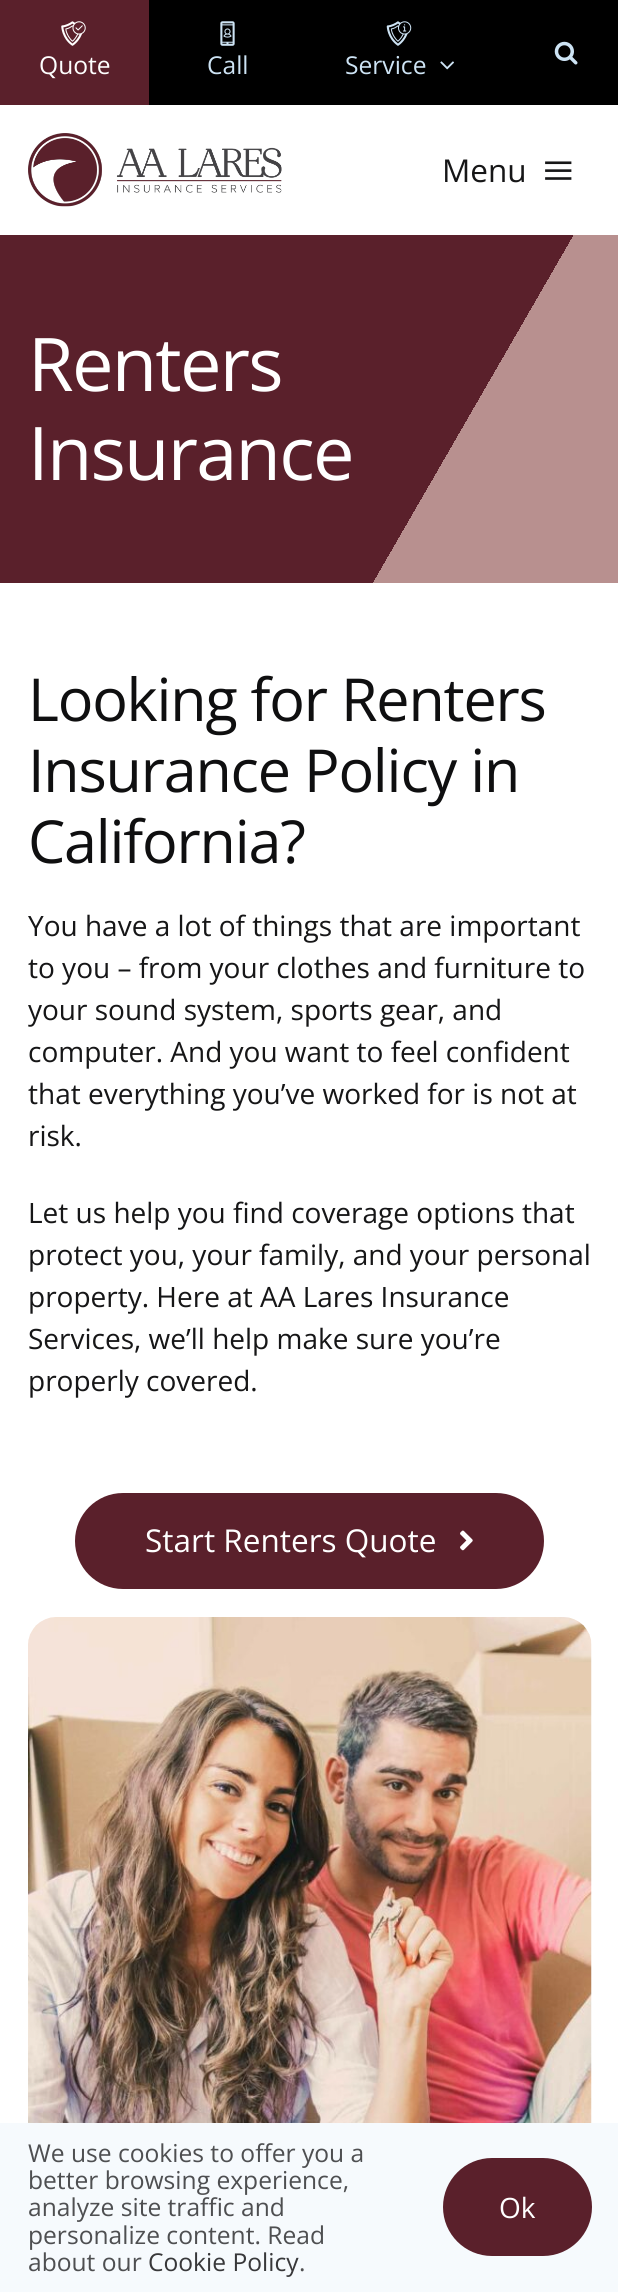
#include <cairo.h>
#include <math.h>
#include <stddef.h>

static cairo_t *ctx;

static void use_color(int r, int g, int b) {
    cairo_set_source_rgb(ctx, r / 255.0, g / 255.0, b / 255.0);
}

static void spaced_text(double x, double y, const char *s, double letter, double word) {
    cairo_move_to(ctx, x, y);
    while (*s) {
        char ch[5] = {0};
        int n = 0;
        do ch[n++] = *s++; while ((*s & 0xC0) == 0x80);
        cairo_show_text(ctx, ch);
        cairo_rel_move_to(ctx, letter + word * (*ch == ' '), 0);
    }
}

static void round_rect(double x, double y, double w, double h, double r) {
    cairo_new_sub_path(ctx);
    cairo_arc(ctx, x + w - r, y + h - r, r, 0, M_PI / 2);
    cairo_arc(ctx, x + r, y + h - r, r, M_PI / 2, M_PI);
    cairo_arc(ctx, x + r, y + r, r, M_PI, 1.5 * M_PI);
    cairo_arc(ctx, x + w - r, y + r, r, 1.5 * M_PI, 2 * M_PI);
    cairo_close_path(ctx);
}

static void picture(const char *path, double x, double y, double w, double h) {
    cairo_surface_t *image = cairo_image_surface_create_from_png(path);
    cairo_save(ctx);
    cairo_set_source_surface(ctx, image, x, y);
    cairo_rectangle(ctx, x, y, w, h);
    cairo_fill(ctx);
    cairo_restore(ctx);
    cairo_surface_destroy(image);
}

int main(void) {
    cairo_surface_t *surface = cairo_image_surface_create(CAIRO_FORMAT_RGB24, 618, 2292);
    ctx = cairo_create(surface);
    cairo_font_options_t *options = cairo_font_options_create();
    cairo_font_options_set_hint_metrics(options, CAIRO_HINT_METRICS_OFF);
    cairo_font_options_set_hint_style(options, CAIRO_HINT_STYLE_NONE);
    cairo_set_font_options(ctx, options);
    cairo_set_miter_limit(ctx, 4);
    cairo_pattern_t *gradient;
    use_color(255, 255, 255);
    cairo_paint(ctx);
    use_color(0, 0, 0);
    cairo_rectangle(ctx, 149, 0, 469, 105);
    cairo_fill(ctx);
    use_color(90, 32, 43);
    cairo_rectangle(ctx, 0, 0, 149, 105);
    cairo_fill(ctx);
    picture("img1.png", 61, 21, 25, 25);
    cairo_select_font_face(ctx, "Open Sans", CAIRO_FONT_SLANT_NORMAL, CAIRO_FONT_WEIGHT_NORMAL);
    cairo_set_font_size(ctx, 24.6);
    use_color(255, 255, 255);
    cairo_move_to(ctx, 39, 74);
    cairo_show_text(ctx, "Quote");
    picture("img2.png", 220, 21, 15, 25);
    use_color(205, 227, 244);
    cairo_move_to(ctx, 207, 74);
    cairo_show_text(ctx, "Call");
    picture("img3.png", 386, 21, 26, 25);
    cairo_move_to(ctx, 345, 74);
    cairo_show_text(ctx, "Service");
    picture("img4.png", 440, 61, 14, 9);
    picture("img5.png", 554, 41, 24, 24);
    picture("img6.png", 28, 133, 254, 74);
    cairo_set_font_size(ctx, 31.5);
    use_color(22, 22, 23);
    cairo_move_to(ctx, 442, 182);
    cairo_show_text(ctx, "Menu");
    picture("img7.png", 545, 161, 27, 19);
    gradient = cairo_pattern_create_linear(2, 231, 617, 586);
    cairo_pattern_add_color_stop_rgba(gradient, 0.7, 0.353, 0.125, 0.169, 1);
    cairo_pattern_add_color_stop_rgba(gradient, 0.7, 0.722, 0.565, 0.561, 1);
    cairo_set_source(ctx, gradient);
    cairo_pattern_destroy(gradient);
    cairo_rectangle(ctx, 0, 235, 618, 348);
    cairo_fill(ctx);
    cairo_set_font_size(ctx, 74);
    use_color(255, 255, 255);
    spaced_text(28, 391, "Renters", -1.75, 0);
    spaced_text(28, 480, "Insurance", -1.75, 0);
    cairo_set_font_size(ctx, 59.25);
    use_color(15, 15, 16);
    spaced_text(28, 721, "Looking for Renters", -1.2, 0);
    spaced_text(28, 792, "Insurance Policy in", -1.2, 0);
    spaced_text(28, 863, "California?", -1.2, 0);
    cairo_set_font_size(ctx, 28);
    use_color(22, 22, 23);
    cairo_move_to(ctx, 28, 936);
    cairo_show_text(ctx, "You have a lot of things that are important");
    cairo_move_to(ctx, 28, 978);
    cairo_show_text(ctx, "to you – from your clothes and furniture to");
    cairo_move_to(ctx, 28, 1020);
    cairo_show_text(ctx, "your sound system, sports gear, and");
    cairo_move_to(ctx, 28, 1062);
    cairo_show_text(ctx, "computer. And you want to feel confident");
    cairo_move_to(ctx, 28, 1104);
    cairo_show_text(ctx, "that everything you’ve worked for is not at");
    cairo_move_to(ctx, 28, 1146);
    cairo_show_text(ctx, "risk.");
    cairo_move_to(ctx, 28, 1223);
    cairo_show_text(ctx, "Let us help you find coverage options that");
    cairo_move_to(ctx, 28, 1265);
    cairo_show_text(ctx, "protect you, your family, and your personal");
    cairo_move_to(ctx, 28, 1307);
    cairo_show_text(ctx, "property. Here at AA Lares Insurance");
    cairo_move_to(ctx, 28, 1349);
    cairo_show_text(ctx, "Services, we’ll help make sure you’re");
    cairo_move_to(ctx, 28, 1391);
    cairo_show_text(ctx, "properly covered.");
    use_color(90, 32, 43);
    round_rect(75, 1493, 469, 96, 48);
    cairo_fill(ctx);
    cairo_set_font_size(ctx, 31.5);
    use_color(255, 255, 255);
    cairo_move_to(ctx, 145, 1552);
    cairo_show_text(ctx, "Start Renters Quote");
    picture("img8.png", 460, 1530, 13, 21);
    picture("img9.png", 28, 1617, 564, 506);
    use_color(246, 250, 253);
    cairo_rectangle(ctx, 0, 2123, 618, 169);
    cairo_fill(ctx);
    cairo_set_font_size(ctx, 24.6);
    use_color(78, 79, 81);
    cairo_move_to(ctx, 28, 2162);
    cairo_show_text(ctx, "We use cookies to offer you a");
    cairo_move_to(ctx, 28, 2189);
    cairo_show_text(ctx, "better browsing experience,");
    cairo_move_to(ctx, 28, 2216);
    cairo_show_text(ctx, "analyze site traffic and");
    cairo_move_to(ctx, 28, 2244);
    cairo_show_text(ctx, "personalize content. Read");
    cairo_move_to(ctx, 28, 2271);
    cairo_show_text(ctx, "about our");
    use_color(56, 56, 58);
    cairo_move_to(ctx, 148, 2271);
    cairo_show_text(ctx, "Cookie Policy");
    use_color(78, 79, 81);
    cairo_move_to(ctx, 299, 2271);
    cairo_show_text(ctx, ".");
    use_color(90, 32, 43);
    round_rect(443, 2158, 149, 98, 49);
    cairo_fill(ctx);
    cairo_set_font_size(ctx, 28);
    use_color(255, 255, 255);
    cairo_move_to(ctx, 499, 2218);
    cairo_show_text(ctx, "Ok");
    cairo_surface_write_to_png(surface, "result.png");
    cairo_font_options_destroy(options);
    cairo_destroy(ctx);
    cairo_surface_destroy(surface);
    return 0;
}
